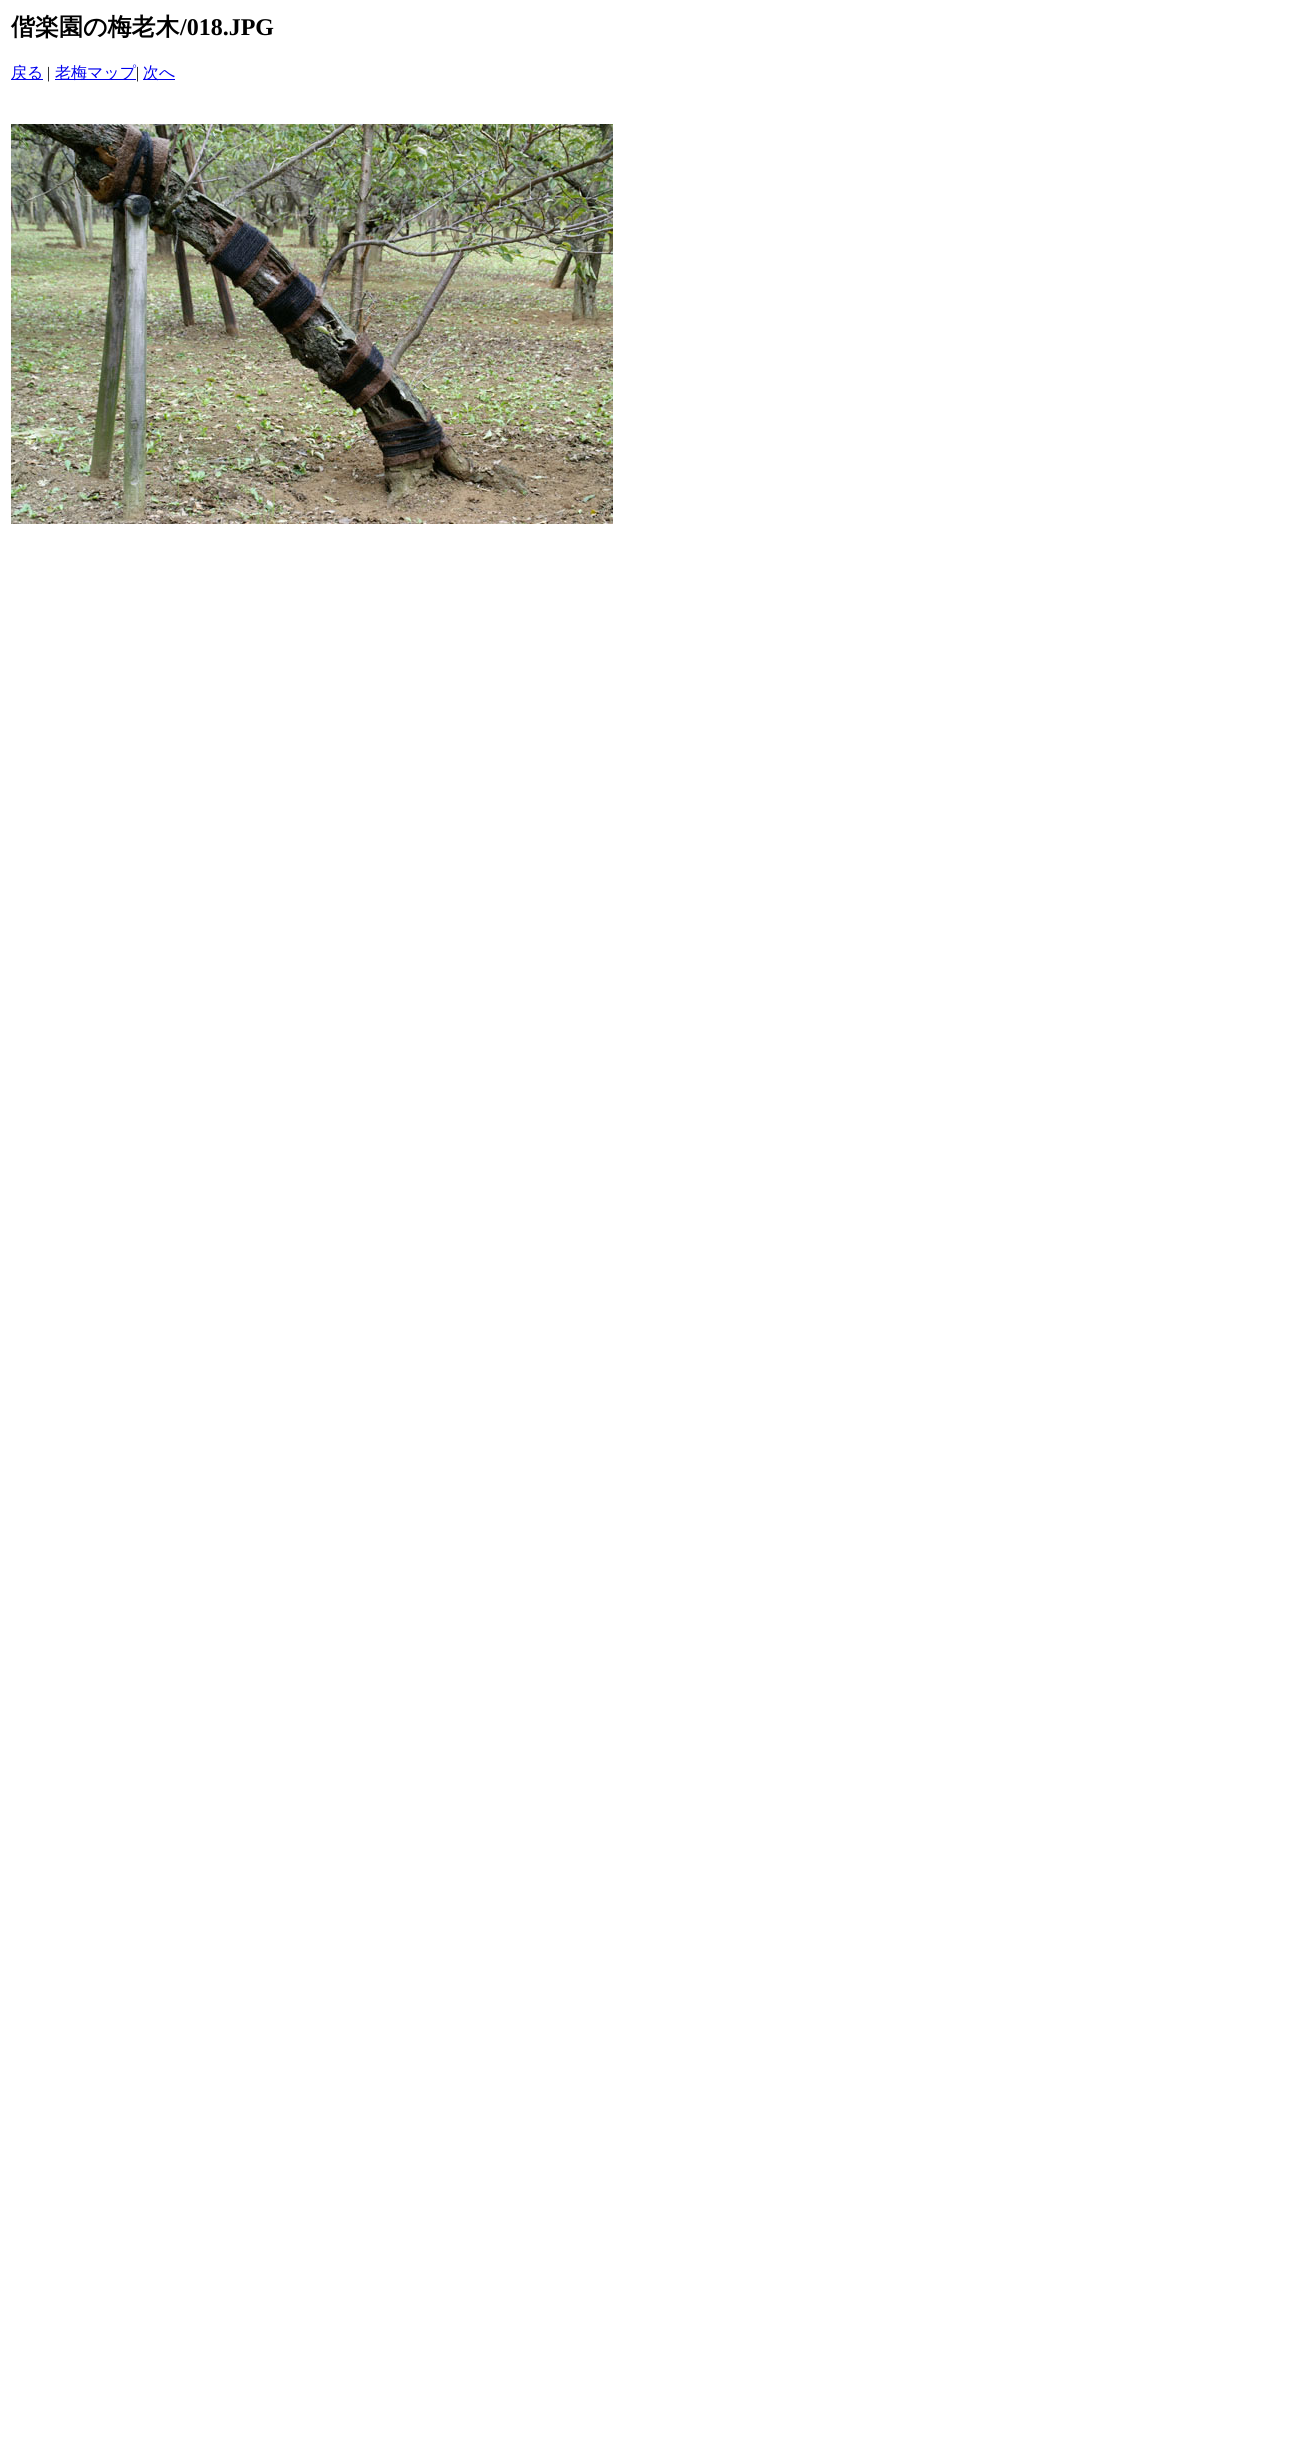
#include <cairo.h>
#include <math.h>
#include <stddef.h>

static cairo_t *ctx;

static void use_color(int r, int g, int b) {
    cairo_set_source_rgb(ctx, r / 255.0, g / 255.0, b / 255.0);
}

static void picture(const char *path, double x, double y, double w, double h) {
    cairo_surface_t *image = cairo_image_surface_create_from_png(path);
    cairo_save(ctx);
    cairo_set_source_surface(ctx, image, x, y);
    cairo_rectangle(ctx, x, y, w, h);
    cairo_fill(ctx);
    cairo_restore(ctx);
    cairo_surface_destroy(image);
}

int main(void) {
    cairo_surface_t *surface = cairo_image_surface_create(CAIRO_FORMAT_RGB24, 1293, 2446);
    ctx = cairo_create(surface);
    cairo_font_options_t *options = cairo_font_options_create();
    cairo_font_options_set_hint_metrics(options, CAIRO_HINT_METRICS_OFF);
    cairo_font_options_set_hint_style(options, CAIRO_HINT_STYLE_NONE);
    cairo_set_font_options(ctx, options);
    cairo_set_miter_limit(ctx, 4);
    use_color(255, 255, 255);
    cairo_paint(ctx);
    cairo_select_font_face(ctx, "WenQuanYi Zen Hei", CAIRO_FONT_SLANT_NORMAL, CAIRO_FONT_WEIGHT_BOLD);
    cairo_set_font_size(ctx, 24);
    use_color(0, 0, 0);
    cairo_move_to(ctx, 11, 35);
    cairo_show_text(ctx, "偕楽園の梅老木");
    cairo_select_font_face(ctx, "Liberation Serif", CAIRO_FONT_SLANT_NORMAL, CAIRO_FONT_WEIGHT_BOLD);
    cairo_move_to(ctx, 180, 35);
    cairo_show_text(ctx, "/018.JPG");
    use_color(0, 0, 238);
    cairo_rectangle(ctx, 11, 79, 32, 1);
    cairo_fill(ctx);
    cairo_select_font_face(ctx, "WenQuanYi Zen Hei Medium", CAIRO_FONT_SLANT_NORMAL, CAIRO_FONT_WEIGHT_NORMAL);
    cairo_set_font_size(ctx, 16);
    cairo_move_to(ctx, 11, 78);
    cairo_show_text(ctx, "戻る");
    cairo_select_font_face(ctx, "Liberation Serif", CAIRO_FONT_SLANT_NORMAL, CAIRO_FONT_WEIGHT_NORMAL);
    use_color(0, 0, 0);
    cairo_move_to(ctx, 47, 78);
    cairo_show_text(ctx, "|");
    use_color(0, 0, 238);
    cairo_rectangle(ctx, 55, 79, 81, 1);
    cairo_fill(ctx);
    cairo_select_font_face(ctx, "WenQuanYi Zen Hei Medium", CAIRO_FONT_SLANT_NORMAL, CAIRO_FONT_WEIGHT_NORMAL);
    cairo_move_to(ctx, 55, 78);
    cairo_show_text(ctx, "老梅マップ");
    cairo_select_font_face(ctx, "Liberation Serif", CAIRO_FONT_SLANT_NORMAL, CAIRO_FONT_WEIGHT_NORMAL);
    use_color(0, 0, 0);
    cairo_move_to(ctx, 136, 78);
    cairo_show_text(ctx, "|");
    use_color(0, 0, 238);
    cairo_rectangle(ctx, 143, 79, 32, 1);
    cairo_fill(ctx);
    cairo_select_font_face(ctx, "WenQuanYi Zen Hei Medium", CAIRO_FONT_SLANT_NORMAL, CAIRO_FONT_WEIGHT_NORMAL);
    cairo_move_to(ctx, 143, 78);
    cairo_show_text(ctx, "次へ");
    picture("img1.png", 11, 124, 602, 400);
    cairo_surface_write_to_png(surface, "result.png");
    cairo_font_options_destroy(options);
    cairo_destroy(ctx);
    cairo_surface_destroy(surface);
    return 0;
}
